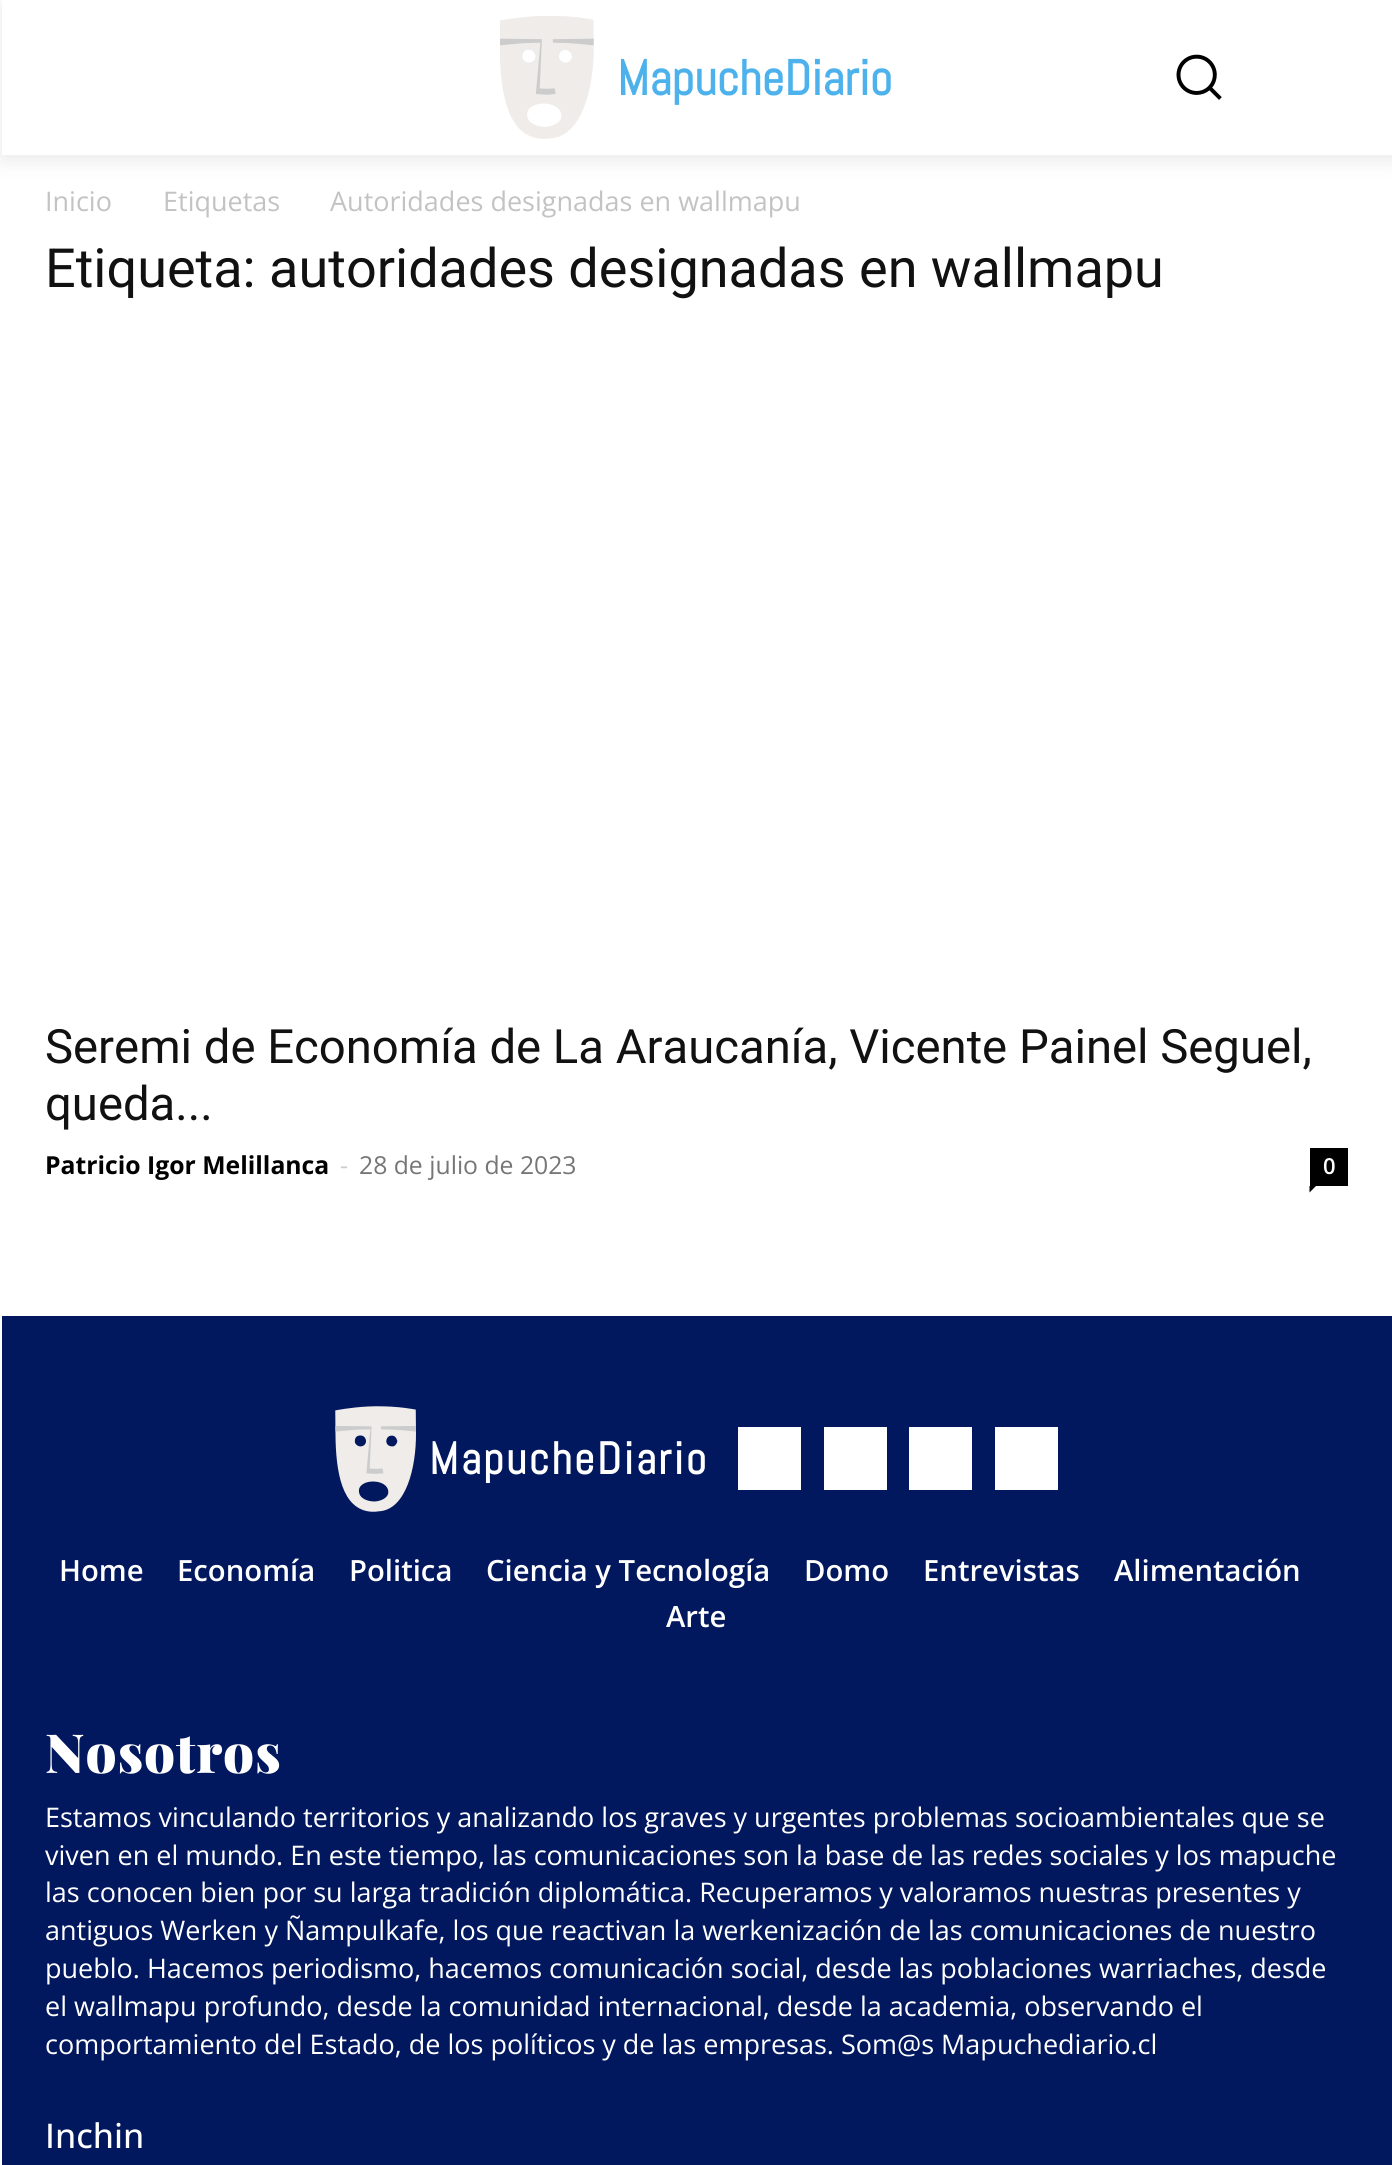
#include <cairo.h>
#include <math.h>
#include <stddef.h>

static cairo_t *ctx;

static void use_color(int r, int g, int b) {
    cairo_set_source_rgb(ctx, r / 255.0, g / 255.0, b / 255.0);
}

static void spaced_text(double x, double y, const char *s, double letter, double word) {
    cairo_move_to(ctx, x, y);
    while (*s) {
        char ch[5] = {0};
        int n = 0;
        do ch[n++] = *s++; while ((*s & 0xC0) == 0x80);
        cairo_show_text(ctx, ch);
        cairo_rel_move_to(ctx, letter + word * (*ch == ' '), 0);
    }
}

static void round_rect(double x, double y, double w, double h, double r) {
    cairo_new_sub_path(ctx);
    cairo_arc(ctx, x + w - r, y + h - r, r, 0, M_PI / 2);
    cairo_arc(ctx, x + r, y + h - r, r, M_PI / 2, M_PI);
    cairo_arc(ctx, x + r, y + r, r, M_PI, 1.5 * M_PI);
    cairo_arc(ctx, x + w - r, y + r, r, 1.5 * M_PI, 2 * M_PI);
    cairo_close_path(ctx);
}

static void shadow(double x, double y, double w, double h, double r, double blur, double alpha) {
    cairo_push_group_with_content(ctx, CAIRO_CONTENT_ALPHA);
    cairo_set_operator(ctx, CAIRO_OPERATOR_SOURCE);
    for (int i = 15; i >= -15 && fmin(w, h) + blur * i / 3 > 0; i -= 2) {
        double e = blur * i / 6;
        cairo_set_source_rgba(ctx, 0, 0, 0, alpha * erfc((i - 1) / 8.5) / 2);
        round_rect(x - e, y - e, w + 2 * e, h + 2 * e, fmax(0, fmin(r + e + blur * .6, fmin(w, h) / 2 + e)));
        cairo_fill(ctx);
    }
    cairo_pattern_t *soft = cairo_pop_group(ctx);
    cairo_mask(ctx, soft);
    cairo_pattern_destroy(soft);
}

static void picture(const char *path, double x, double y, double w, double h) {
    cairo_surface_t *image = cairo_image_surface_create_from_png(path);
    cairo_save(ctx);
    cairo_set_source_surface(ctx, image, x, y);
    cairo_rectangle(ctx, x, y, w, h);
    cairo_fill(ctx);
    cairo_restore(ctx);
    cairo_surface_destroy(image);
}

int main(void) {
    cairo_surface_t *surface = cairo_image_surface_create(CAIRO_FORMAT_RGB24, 1392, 2165);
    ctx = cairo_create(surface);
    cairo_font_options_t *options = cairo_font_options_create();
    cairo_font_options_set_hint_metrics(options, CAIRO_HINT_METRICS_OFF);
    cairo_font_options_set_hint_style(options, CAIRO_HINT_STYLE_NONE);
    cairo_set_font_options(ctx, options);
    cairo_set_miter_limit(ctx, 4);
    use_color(255, 255, 255);
    cairo_paint(ctx);
    picture("img1.png", 500, 16, 94, 123);
    picture("img2.png", 1176, 54, 46, 46);
    cairo_save(ctx);
    cairo_set_fill_rule(ctx, CAIRO_FILL_RULE_EVEN_ODD);
    cairo_new_path(ctx);
    cairo_move_to(ctx, 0, 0);
    cairo_line_to(ctx, 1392, 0);
    cairo_line_to(ctx, 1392, 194);
    cairo_line_to(ctx, 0, 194);
    cairo_close_path(ctx);
    cairo_move_to(ctx, 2, 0);
    cairo_line_to(ctx, 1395, 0);
    cairo_line_to(ctx, 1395, 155);
    cairo_line_to(ctx, 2, 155);
    cairo_close_path(ctx);
    cairo_clip(ctx);
    use_color(0, 0, 0);
    shadow(2, 5, 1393, 155, 0, 11, 0.09);
    cairo_restore(ctx);
    cairo_select_font_face(ctx, "Abel", CAIRO_FONT_SLANT_NORMAL, CAIRO_FONT_WEIGHT_BOLD);
    cairo_set_font_size(ctx, 49.5);
    use_color(77, 178, 236);
    cairo_move_to(ctx, 617, 95);
    cairo_show_text(ctx, "MapucheDiario");
    cairo_select_font_face(ctx, "Open Sans", CAIRO_FONT_SLANT_NORMAL, CAIRO_FONT_WEIGHT_NORMAL);
    cairo_set_font_size(ctx, 27);
    use_color(195, 195, 195);
    cairo_move_to(ctx, 45, 211);
    cairo_show_text(ctx, "Inicio");
    cairo_move_to(ctx, 163, 211);
    cairo_show_text(ctx, "Etiquetas");
    cairo_move_to(ctx, 330, 211);
    cairo_show_text(ctx, "Autoridades designadas en wallmapu");
    cairo_select_font_face(ctx, "Roboto", CAIRO_FONT_SLANT_NORMAL, CAIRO_FONT_WEIGHT_NORMAL);
    cairo_set_font_size(ctx, 54);
    use_color(17, 17, 17);
    cairo_move_to(ctx, 45, 287);
    cairo_show_text(ctx, "Etiqueta: autoridades designadas en wallmapu");
    cairo_set_font_size(ctx, 47.25);
    cairo_move_to(ctx, 45, 1063);
    cairo_show_text(ctx, "Seremi de Economía de La Araucanía, Vicente Painel Seguel,");
    cairo_move_to(ctx, 45, 1120);
    cairo_show_text(ctx, "queda...");
    cairo_select_font_face(ctx, "Open Sans", CAIRO_FONT_SLANT_NORMAL, CAIRO_FONT_WEIGHT_BOLD);
    cairo_set_font_size(ctx, 24.75);
    use_color(0, 0, 0);
    cairo_move_to(ctx, 45, 1174);
    cairo_show_text(ctx, "Patricio Igor Melillanca");
    cairo_select_font_face(ctx, "Open Sans", CAIRO_FONT_SLANT_NORMAL, CAIRO_FONT_WEIGHT_NORMAL);
    use_color(204, 204, 204);
    cairo_move_to(ctx, 340, 1174);
    cairo_show_text(ctx, "-");
    use_color(118, 118, 118);
    cairo_move_to(ctx, 359, 1174);
    cairo_show_text(ctx, "28 de julio de 2023");
    use_color(0, 0, 0);
    cairo_rectangle(ctx, 1310, 1148, 38, 38);
    cairo_fill(ctx);
    cairo_select_font_face(ctx, "Open Sans SemiBold", CAIRO_FONT_SLANT_NORMAL, CAIRO_FONT_WEIGHT_NORMAL);
    cairo_set_font_size(ctx, 22);
    use_color(255, 255, 255);
    cairo_move_to(ctx, 1323, 1174);
    cairo_show_text(ctx, "0");
    use_color(0, 0, 0);
    cairo_new_path(ctx);
    cairo_move_to(ctx, 1309.5, 1186);
    cairo_line_to(ctx, 1316, 1186);
    cairo_line_to(ctx, 1309.5, 1192.5);
    cairo_close_path(ctx);
    cairo_fill(ctx);
    use_color(1, 23, 94);
    cairo_rectangle(ctx, 2, 1316, 1390, 849);
    cairo_fill(ctx);
    picture("img3.png", 335, 1406, 81, 106);
    cairo_select_font_face(ctx, "Abel", CAIRO_FONT_SLANT_NORMAL, CAIRO_FONT_WEIGHT_BOLD);
    cairo_set_font_size(ctx, 45);
    use_color(255, 255, 255);
    spaced_text(429, 1474, "MapucheDiario", 2.25, 0);
    cairo_rectangle(ctx, 738, 1427, 63, 63);
    cairo_fill(ctx);
    cairo_rectangle(ctx, 824, 1427, 63, 63);
    cairo_fill(ctx);
    cairo_rectangle(ctx, 909, 1427, 63, 63);
    cairo_fill(ctx);
    cairo_rectangle(ctx, 995, 1427, 63, 63);
    cairo_fill(ctx);
    cairo_select_font_face(ctx, "Open Sans SemiBold", CAIRO_FONT_SLANT_NORMAL, CAIRO_FONT_WEIGHT_NORMAL);
    cairo_set_font_size(ctx, 29.25);
    cairo_move_to(ctx, 59, 1581);
    cairo_show_text(ctx, "Home");
    cairo_move_to(ctx, 177, 1581);
    cairo_show_text(ctx, "Economía");
    cairo_move_to(ctx, 349, 1581);
    cairo_show_text(ctx, "Politica");
    cairo_move_to(ctx, 486, 1581);
    cairo_show_text(ctx, "Ciencia y Tecnología");
    cairo_move_to(ctx, 804, 1581);
    cairo_show_text(ctx, "Domo");
    cairo_move_to(ctx, 923, 1581);
    cairo_show_text(ctx, "Entrevistas");
    cairo_move_to(ctx, 1114, 1581);
    cairo_show_text(ctx, "Alimentación");
    cairo_move_to(ctx, 666, 1627);
    cairo_show_text(ctx, "Arte");
    cairo_select_font_face(ctx, "Playfair Display Black", CAIRO_FONT_SLANT_NORMAL, CAIRO_FONT_WEIGHT_NORMAL);
    cairo_set_font_size(ctx, 54);
    spaced_text(45, 1773, "Nosotros", 1, 0);
    cairo_select_font_face(ctx, "Open Sans", CAIRO_FONT_SLANT_NORMAL, CAIRO_FONT_WEIGHT_NORMAL);
    cairo_set_font_size(ctx, 27);
    cairo_move_to(ctx, 45, 1827);
    cairo_show_text(ctx, "Estamos vinculando territorios y analizando los graves y urgentes problemas socioambientales que se");
    cairo_move_to(ctx, 45, 1865);
    cairo_show_text(ctx, "viven en el mundo. En este tiempo, las comunicaciones son la base de las redes sociales y los mapuche");
    cairo_move_to(ctx, 45, 1902);
    cairo_show_text(ctx, "las conocen bien por su larga tradición diplomática. Recuperamos y valoramos nuestras presentes y");
    cairo_move_to(ctx, 45, 1940);
    cairo_show_text(ctx, "antiguos Werken y Ñampulkafe, los que reactivan la werkenización de las comunicaciones de nuestro");
    cairo_move_to(ctx, 45, 1978);
    cairo_show_text(ctx, "pueblo. Hacemos periodismo, hacemos comunicación social, desde las poblaciones warriaches, desde");
    cairo_move_to(ctx, 45, 2016);
    cairo_show_text(ctx, "el wallmapu profundo, desde la comunidad internacional, desde la academia, observando el");
    cairo_move_to(ctx, 45, 2054);
    cairo_show_text(ctx, "comportamiento del Estado, de los políticos y de las empresas. Som@s Mapuchediario.cl");
    cairo_select_font_face(ctx, "Open Sans Medium", CAIRO_FONT_SLANT_NORMAL, CAIRO_FONT_WEIGHT_NORMAL);
    cairo_set_font_size(ctx, 34);
    cairo_move_to(ctx, 45, 2148);
    cairo_show_text(ctx, "Inchin");
    cairo_surface_write_to_png(surface, "result.png");
    cairo_font_options_destroy(options);
    cairo_destroy(ctx);
    cairo_surface_destroy(surface);
    return 0;
}
